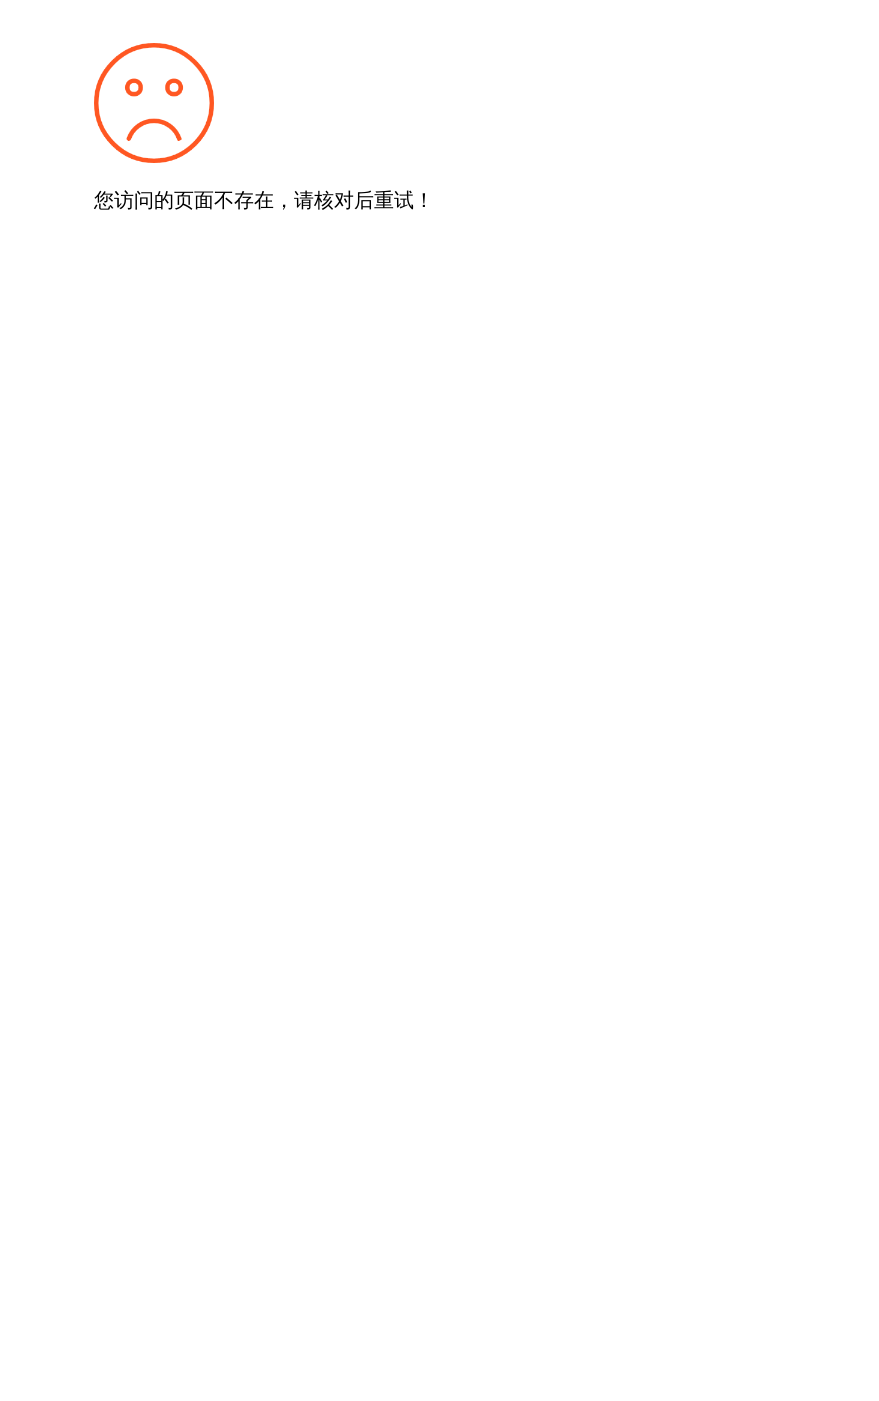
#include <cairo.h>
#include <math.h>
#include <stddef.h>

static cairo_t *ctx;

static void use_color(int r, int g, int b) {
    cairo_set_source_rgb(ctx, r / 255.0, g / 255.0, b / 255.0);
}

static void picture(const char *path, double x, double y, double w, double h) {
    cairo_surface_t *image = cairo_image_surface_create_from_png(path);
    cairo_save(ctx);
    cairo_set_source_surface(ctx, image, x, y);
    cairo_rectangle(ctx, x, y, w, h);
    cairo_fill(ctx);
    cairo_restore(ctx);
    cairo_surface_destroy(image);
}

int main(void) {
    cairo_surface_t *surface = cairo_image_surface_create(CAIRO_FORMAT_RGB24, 879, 1401);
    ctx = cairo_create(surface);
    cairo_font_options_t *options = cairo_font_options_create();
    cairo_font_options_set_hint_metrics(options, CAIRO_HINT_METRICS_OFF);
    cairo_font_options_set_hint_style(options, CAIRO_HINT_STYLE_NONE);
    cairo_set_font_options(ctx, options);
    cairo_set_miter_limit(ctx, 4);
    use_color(255, 255, 255);
    cairo_paint(ctx);
    picture("img1.png", 94, 43, 120, 120);
    cairo_select_font_face(ctx, "WenQuanYi Zen Hei Medium", CAIRO_FONT_SLANT_NORMAL, CAIRO_FONT_WEIGHT_NORMAL);
    cairo_set_font_size(ctx, 20);
    use_color(0, 0, 0);
    cairo_move_to(ctx, 94, 207);
    cairo_show_text(ctx, "您访问的页面不存在，请核对后重试！");
    cairo_surface_write_to_png(surface, "result.png");
    cairo_font_options_destroy(options);
    cairo_destroy(ctx);
    cairo_surface_destroy(surface);
    return 0;
}
